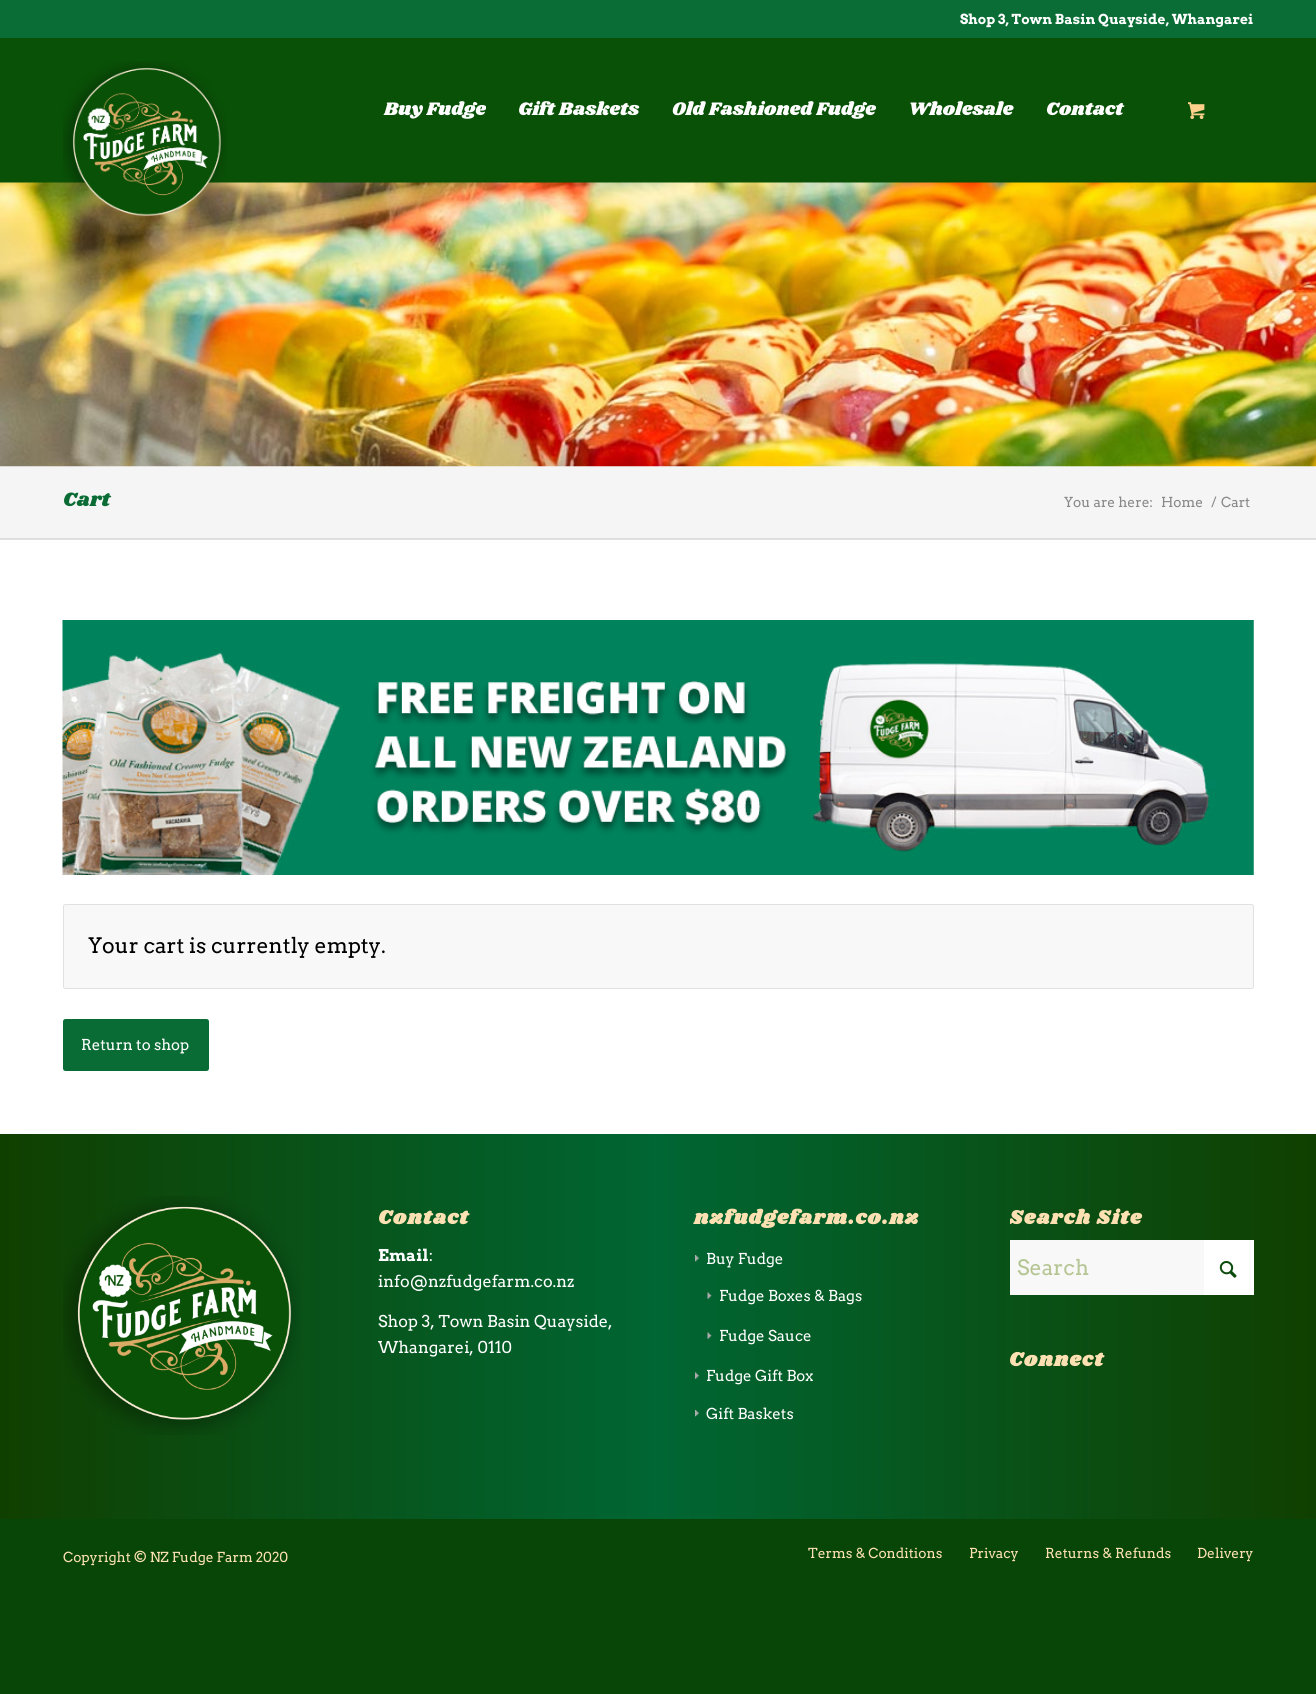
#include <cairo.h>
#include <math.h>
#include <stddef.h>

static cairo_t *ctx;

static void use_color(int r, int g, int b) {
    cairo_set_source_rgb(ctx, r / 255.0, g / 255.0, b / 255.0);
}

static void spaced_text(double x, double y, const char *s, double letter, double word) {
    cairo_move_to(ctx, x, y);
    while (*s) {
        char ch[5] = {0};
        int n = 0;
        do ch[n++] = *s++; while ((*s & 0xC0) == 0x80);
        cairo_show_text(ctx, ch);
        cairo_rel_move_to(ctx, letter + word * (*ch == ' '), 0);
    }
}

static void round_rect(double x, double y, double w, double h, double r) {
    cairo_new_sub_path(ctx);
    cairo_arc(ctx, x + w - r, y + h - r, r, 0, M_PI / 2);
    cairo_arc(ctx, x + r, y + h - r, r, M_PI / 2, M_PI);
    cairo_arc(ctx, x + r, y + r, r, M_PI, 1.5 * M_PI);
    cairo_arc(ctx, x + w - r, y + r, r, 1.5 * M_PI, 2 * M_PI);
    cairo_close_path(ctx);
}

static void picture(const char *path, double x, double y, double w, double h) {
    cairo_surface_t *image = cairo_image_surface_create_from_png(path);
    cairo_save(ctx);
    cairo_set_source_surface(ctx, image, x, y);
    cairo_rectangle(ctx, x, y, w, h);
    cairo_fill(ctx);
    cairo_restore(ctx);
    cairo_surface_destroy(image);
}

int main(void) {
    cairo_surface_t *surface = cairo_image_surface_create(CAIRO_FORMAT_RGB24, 1316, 1694);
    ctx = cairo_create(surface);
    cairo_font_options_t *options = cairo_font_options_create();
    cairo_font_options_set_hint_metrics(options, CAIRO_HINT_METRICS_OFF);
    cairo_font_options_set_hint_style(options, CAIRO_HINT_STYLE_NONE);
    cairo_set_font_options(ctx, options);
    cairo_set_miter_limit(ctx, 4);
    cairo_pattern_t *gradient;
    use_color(7, 70, 7);
    cairo_paint(ctx);
    use_color(10, 109, 54);
    cairo_rectangle(ctx, 0, 0, 1316, 38);
    cairo_fill(ctx);
    cairo_select_font_face(ctx, "Arvo", CAIRO_FONT_SLANT_NORMAL, CAIRO_FONT_WEIGHT_BOLD);
    cairo_set_font_size(ctx, 13.75);
    use_color(255, 255, 255);
    cairo_move_to(ctx, 960, 24);
    cairo_show_text(ctx, "Shop 3, Town Basin Quayside, Whangarei");
    use_color(9, 81, 7);
    cairo_rectangle(ctx, 0, 38, 1316, 145);
    cairo_fill(ctx);
    use_color(245, 245, 245);
    cairo_rectangle(ctx, 0, 466, 1316, 72);
    cairo_fill(ctx);
    picture("img3.png", 0, 182, 1316, 285);
    picture("img1.png", 63, 61, 164, 165);
    cairo_select_font_face(ctx, "Shrikhand", CAIRO_FONT_SLANT_NORMAL, CAIRO_FONT_WEIGHT_NORMAL);
    cairo_set_font_size(ctx, 18.75);
    use_color(255, 255, 255);
    cairo_move_to(ctx, 384, 115);
    cairo_show_text(ctx, "Buy Fudge");
    cairo_move_to(ctx, 518, 115);
    cairo_show_text(ctx, "Gift Baskets");
    cairo_move_to(ctx, 672, 115);
    cairo_show_text(ctx, "Old Fashioned Fudge");
    cairo_move_to(ctx, 908, 115);
    cairo_show_text(ctx, "Wholesale");
    cairo_move_to(ctx, 1046, 115);
    cairo_show_text(ctx, "Contact");
    picture("img2.png", 1188, 102, 17, 17);
    use_color(221, 221, 221);
    cairo_rectangle(ctx, 0, 538, 1316, 1);
    cairo_fill(ctx);
    cairo_set_font_size(ctx, 20);
    use_color(10, 108, 52);
    cairo_move_to(ctx, 63, 506);
    cairo_show_text(ctx, "Cart");
    cairo_select_font_face(ctx, "Arvo", CAIRO_FONT_SLANT_NORMAL, CAIRO_FONT_WEIGHT_NORMAL);
    cairo_set_font_size(ctx, 13.75);
    use_color(136, 136, 136);
    cairo_move_to(ctx, 1064, 507);
    cairo_show_text(ctx, "You are here:");
    cairo_move_to(ctx, 1161, 507);
    cairo_show_text(ctx, "Home");
    cairo_move_to(ctx, 1211, 507);
    cairo_show_text(ctx, "/");
    cairo_move_to(ctx, 1221, 507);
    cairo_show_text(ctx, "Cart");
    use_color(255, 255, 255);
    cairo_rectangle(ctx, 0, 540, 1316, 594);
    cairo_fill(ctx);
    use_color(225, 225, 225);
    cairo_rectangle(ctx, 0, 539, 1316, 1);
    cairo_fill(ctx);
    picture("img4.png", 62, 620, 1192, 255);
    use_color(248, 248, 248);
    round_rect(63.5, 904.5, 1190, 84, 2);
    cairo_fill_preserve(ctx);
    use_color(225, 225, 225);
    cairo_set_line_width(ctx, 1);
    cairo_stroke(ctx);
    cairo_set_font_size(ctx, 21.25);
    use_color(0, 0, 0);
    cairo_move_to(ctx, 88, 953);
    cairo_show_text(ctx, "Your cart is currently empty.");
    use_color(10, 108, 53);
    round_rect(63, 1019, 146, 52, 2.5);
    cairo_fill(ctx);
    cairo_set_font_size(ctx, 15);
    use_color(255, 255, 255);
    cairo_move_to(ctx, 81, 1050);
    cairo_show_text(ctx, "Return to shop");
    gradient = cairo_pattern_create_linear(0, 1328, 1316, 1328);
    cairo_pattern_add_color_stop_rgba(gradient, 0, 0.063, 0.251, 0, 1);
    cairo_pattern_add_color_stop_rgba(gradient, 0.5, 0, 0.4, 0.2, 1);
    cairo_pattern_add_color_stop_rgba(gradient, 1, 0.063, 0.251, 0, 1);
    cairo_set_source(ctx, gradient);
    cairo_pattern_destroy(gradient);
    cairo_rectangle(ctx, 0, 1134, 1316, 385);
    cairo_fill(ctx);
    picture("img5.png", 63, 1196, 237, 239);
    cairo_select_font_face(ctx, "Shrikhand", CAIRO_FONT_SLANT_NORMAL, CAIRO_FONT_WEIGHT_BOLD);
    cairo_set_font_size(ctx, 20);
    use_color(254, 225, 178);
    spaced_text(378, 1224, "Contact", 1.25, 0);
    cairo_select_font_face(ctx, "Arvo", CAIRO_FONT_SLANT_NORMAL, CAIRO_FONT_WEIGHT_BOLD);
    cairo_set_font_size(ctx, 16.25);
    use_color(255, 255, 255);
    cairo_move_to(ctx, 378, 1261);
    cairo_show_text(ctx, "Email");
    cairo_select_font_face(ctx, "Arvo", CAIRO_FONT_SLANT_NORMAL, CAIRO_FONT_WEIGHT_NORMAL);
    cairo_move_to(ctx, 429, 1261);
    cairo_show_text(ctx, ":");
    cairo_move_to(ctx, 378, 1287);
    cairo_show_text(ctx, "info@nzfudgefarm.co.nz");
    cairo_move_to(ctx, 378, 1327);
    cairo_show_text(ctx, "Shop 3, Town Basin Quayside,");
    cairo_move_to(ctx, 378, 1353);
    cairo_show_text(ctx, "Whangarei, 0110");
    cairo_select_font_face(ctx, "Shrikhand", CAIRO_FONT_SLANT_NORMAL, CAIRO_FONT_WEIGHT_BOLD);
    cairo_set_font_size(ctx, 20);
    use_color(254, 225, 178);
    spaced_text(694, 1224, "nzfudgefarm.co.nz", 1.25, 0);
    picture("img6.png", 695, 1255, 4, 7);
    cairo_select_font_face(ctx, "Arvo", CAIRO_FONT_SLANT_NORMAL, CAIRO_FONT_WEIGHT_NORMAL);
    cairo_set_font_size(ctx, 15);
    use_color(255, 255, 255);
    cairo_move_to(ctx, 706, 1264);
    cairo_show_text(ctx, "Buy Fudge");
    picture("img7.png", 707, 1292, 5, 7);
    cairo_move_to(ctx, 719, 1301);
    cairo_show_text(ctx, "Fudge Boxes & Bags");
    picture("img7.png", 707, 1332, 5, 7);
    cairo_move_to(ctx, 719, 1341);
    cairo_show_text(ctx, "Fudge Sauce");
    picture("img8.png", 695, 1372, 4, 7);
    cairo_move_to(ctx, 706, 1381);
    cairo_show_text(ctx, "Fudge Gift Box");
    picture("img6.png", 695, 1410, 4, 7);
    cairo_move_to(ctx, 706, 1419);
    cairo_show_text(ctx, "Gift Baskets");
    cairo_save(ctx);
    cairo_rectangle(ctx, 1010, 1191, 244, 104);
    cairo_clip(ctx);
    cairo_select_font_face(ctx, "Shrikhand", CAIRO_FONT_SLANT_NORMAL, CAIRO_FONT_WEIGHT_BOLD);
    cairo_set_font_size(ctx, 20);
    use_color(254, 225, 178);
    spaced_text(1009, 1224, "Search Site", 1.25, 0);
    cairo_restore(ctx);
    use_color(248, 248, 248);
    cairo_rectangle(ctx, 1010, 1240, 194, 55);
    cairo_fill(ctx);
    cairo_set_font_size(ctx, 21.25);
    use_color(181, 198, 148);
    cairo_move_to(ctx, 1017, 1275);
    cairo_show_text(ctx, "Search");
    use_color(255, 255, 255);
    cairo_rectangle(ctx, 1204, 1240, 50, 55);
    cairo_fill(ctx);
    picture("img9.png", 1219, 1261, 18, 17);
    cairo_select_font_face(ctx, "Shrikhand", CAIRO_FONT_SLANT_NORMAL, CAIRO_FONT_WEIGHT_BOLD);
    cairo_set_font_size(ctx, 20);
    use_color(254, 225, 178);
    spaced_text(1009, 1366, "Connect", 1.25, 0);
    cairo_select_font_face(ctx, "Arvo", CAIRO_FONT_SLANT_NORMAL, CAIRO_FONT_WEIGHT_NORMAL);
    cairo_set_font_size(ctx, 13.75);
    cairo_move_to(ctx, 63, 1562);
    cairo_show_text(ctx, "Copyright © NZ Fudge Farm 2020");
    cairo_move_to(ctx, 808, 1558);
    cairo_show_text(ctx, "Terms & Conditions");
    cairo_move_to(ctx, 969, 1558);
    cairo_show_text(ctx, "Privacy");
    cairo_move_to(ctx, 1045, 1558);
    cairo_show_text(ctx, "Returns & Refunds");
    cairo_move_to(ctx, 1197, 1558);
    cairo_show_text(ctx, "Delivery");
    cairo_surface_write_to_png(surface, "result.png");
    cairo_font_options_destroy(options);
    cairo_destroy(ctx);
    cairo_surface_destroy(surface);
    return 0;
}
